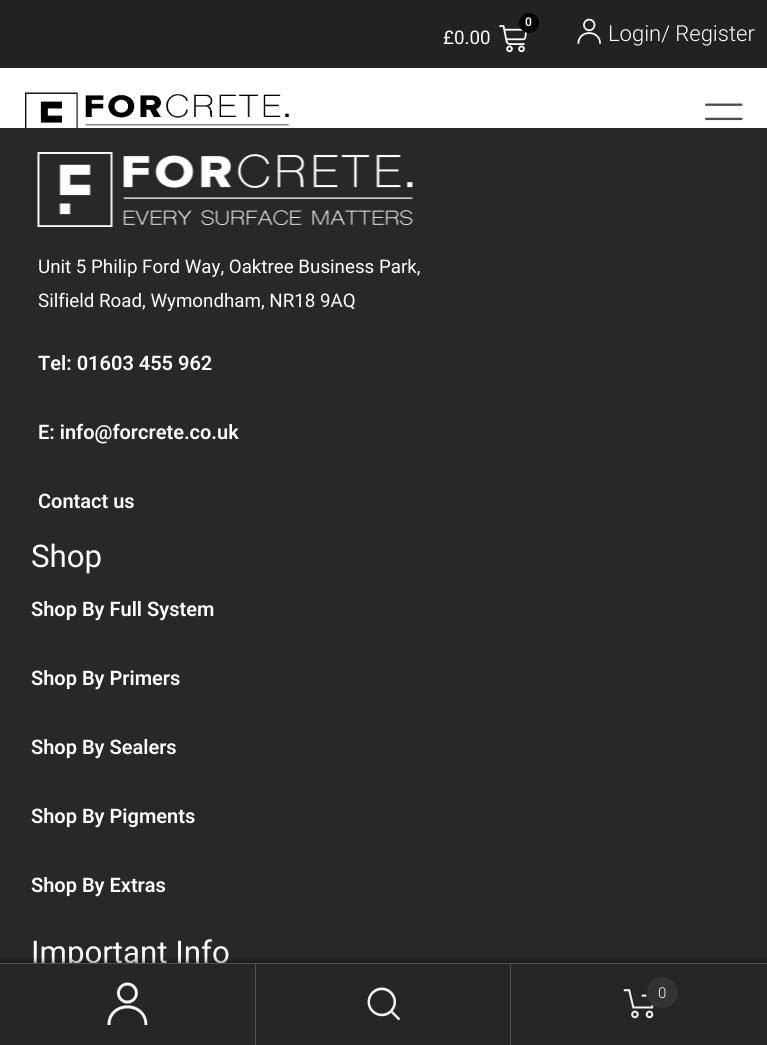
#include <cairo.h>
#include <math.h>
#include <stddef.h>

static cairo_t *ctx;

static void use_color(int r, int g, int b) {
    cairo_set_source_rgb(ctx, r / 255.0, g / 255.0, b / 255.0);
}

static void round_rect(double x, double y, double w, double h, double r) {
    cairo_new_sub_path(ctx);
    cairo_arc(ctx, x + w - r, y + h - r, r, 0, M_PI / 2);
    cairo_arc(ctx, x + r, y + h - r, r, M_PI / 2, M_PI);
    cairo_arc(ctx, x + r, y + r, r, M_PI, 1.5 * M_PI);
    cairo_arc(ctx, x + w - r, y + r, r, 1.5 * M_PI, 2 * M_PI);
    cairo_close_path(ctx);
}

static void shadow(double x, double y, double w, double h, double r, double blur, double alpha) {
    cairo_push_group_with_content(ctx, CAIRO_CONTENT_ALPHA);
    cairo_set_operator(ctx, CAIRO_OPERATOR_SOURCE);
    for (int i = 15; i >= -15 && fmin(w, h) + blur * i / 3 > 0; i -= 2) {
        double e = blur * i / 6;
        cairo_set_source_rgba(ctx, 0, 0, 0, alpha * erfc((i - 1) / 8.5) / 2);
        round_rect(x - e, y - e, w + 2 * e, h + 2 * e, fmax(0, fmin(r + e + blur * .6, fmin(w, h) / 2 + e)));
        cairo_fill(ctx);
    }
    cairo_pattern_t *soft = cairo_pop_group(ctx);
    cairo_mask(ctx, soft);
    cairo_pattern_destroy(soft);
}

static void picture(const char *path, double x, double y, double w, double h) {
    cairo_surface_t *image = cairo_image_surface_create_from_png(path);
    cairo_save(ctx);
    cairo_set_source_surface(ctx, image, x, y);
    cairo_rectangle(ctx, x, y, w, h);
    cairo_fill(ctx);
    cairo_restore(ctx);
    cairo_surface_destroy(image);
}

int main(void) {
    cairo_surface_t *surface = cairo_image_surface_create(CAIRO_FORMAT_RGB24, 767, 1045);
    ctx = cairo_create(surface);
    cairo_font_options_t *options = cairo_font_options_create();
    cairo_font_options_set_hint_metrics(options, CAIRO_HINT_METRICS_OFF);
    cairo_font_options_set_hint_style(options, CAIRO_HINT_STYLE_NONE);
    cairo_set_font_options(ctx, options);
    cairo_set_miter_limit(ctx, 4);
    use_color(255, 255, 255);
    cairo_paint(ctx);
    use_color(34, 34, 34);
    cairo_rectangle(ctx, 0, 0, 767, 68);
    cairo_fill(ctx);
    picture("img1.png", 499, 25, 28, 28);
    use_color(0, 0, 0);
    cairo_arc(ctx, 529, 23, 10, 0, 2 * M_PI);
    cairo_fill(ctx);
    cairo_select_font_face(ctx, "Roboto SemiBold", CAIRO_FONT_SLANT_NORMAL, CAIRO_FONT_WEIGHT_NORMAL);
    cairo_set_font_size(ctx, 12);
    use_color(255, 255, 255);
    cairo_move_to(ctx, 525, 26);
    cairo_show_text(ctx, "0");
    cairo_select_font_face(ctx, "Roboto", CAIRO_FONT_SLANT_NORMAL, CAIRO_FONT_WEIGHT_NORMAL);
    cairo_set_font_size(ctx, 18.75);
    cairo_move_to(ctx, 443, 44);
    cairo_show_text(ctx, "£0.00");
    picture("img2.png", 577, 18, 24, 26);
    cairo_select_font_face(ctx, "Roboto Light", CAIRO_FONT_SLANT_NORMAL, CAIRO_FONT_WEIGHT_NORMAL);
    cairo_set_font_size(ctx, 22);
    cairo_move_to(ctx, 608, 41);
    cairo_show_text(ctx, "Login/ Register");
    picture("img3.png", 25, 92, 264, 36);
    picture("img4.png", 705, 103, 38, 18);
    use_color(40, 40, 40);
    cairo_rectangle(ctx, 0, 128, 767, 835);
    cairo_fill(ctx);
    picture("img5.png", 37, 152, 376, 75);
    cairo_select_font_face(ctx, "Roboto", CAIRO_FONT_SLANT_NORMAL, CAIRO_FONT_WEIGHT_NORMAL);
    cairo_set_font_size(ctx, 18.75);
    use_color(255, 255, 255);
    cairo_move_to(ctx, 38, 273);
    cairo_show_text(ctx, "Unit 5 Philip Ford Way, Oaktree Business Park,");
    cairo_move_to(ctx, 38, 307);
    cairo_show_text(ctx, "Silfield Road, Wymondham, NR18 9AQ");
    cairo_select_font_face(ctx, "Roboto SemiBold", CAIRO_FONT_SLANT_NORMAL, CAIRO_FONT_WEIGHT_NORMAL);
    cairo_set_font_size(ctx, 20);
    cairo_move_to(ctx, 38, 370);
    cairo_show_text(ctx, "Tel: 01603 455 962");
    cairo_move_to(ctx, 38, 439);
    cairo_show_text(ctx, "E: info@forcrete.co.uk");
    cairo_move_to(ctx, 38, 508);
    cairo_show_text(ctx, "Contact us");
    cairo_select_font_face(ctx, "Roboto", CAIRO_FONT_SLANT_NORMAL, CAIRO_FONT_WEIGHT_NORMAL);
    cairo_set_font_size(ctx, 31.25);
    cairo_move_to(ctx, 31, 567);
    cairo_show_text(ctx, "Shop");
    cairo_select_font_face(ctx, "Roboto SemiBold", CAIRO_FONT_SLANT_NORMAL, CAIRO_FONT_WEIGHT_NORMAL);
    cairo_set_font_size(ctx, 20);
    cairo_move_to(ctx, 31, 616);
    cairo_show_text(ctx, "Shop By Full System");
    cairo_move_to(ctx, 31, 685);
    cairo_show_text(ctx, "Shop By Primers");
    cairo_move_to(ctx, 31, 754);
    cairo_show_text(ctx, "Shop By Sealers");
    cairo_move_to(ctx, 31, 823);
    cairo_show_text(ctx, "Shop By Pigments");
    cairo_move_to(ctx, 31, 892);
    cairo_show_text(ctx, "Shop By Extras");
    cairo_select_font_face(ctx, "Roboto", CAIRO_FONT_SLANT_NORMAL, CAIRO_FONT_WEIGHT_NORMAL);
    cairo_set_font_size(ctx, 31.25);
    cairo_move_to(ctx, 31, 963);
    cairo_show_text(ctx, "Important Info");
    use_color(0, 0, 0);
    shadow(0, 963, 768, 82, 0, 4, 0.7);
    use_color(38, 38, 38);
    cairo_rectangle(ctx, 0, 964, 767, 81);
    cairo_fill(ctx);
    use_color(81, 81, 81);
    cairo_rectangle(ctx, 0, 963, 767, 1);
    cairo_fill(ctx);
    cairo_rectangle(ctx, 255, 964, 1, 81);
    cairo_fill(ctx);
    picture("img6.png", 107, 982, 41, 43);
    cairo_rectangle(ctx, 510, 964, 1, 81);
    cairo_fill(ctx);
    picture("img7.png", 367, 987, 33, 33);
    picture("img8.png", 623, 989, 31, 30);
    use_color(51, 51, 51);
    cairo_arc(ctx, 662.5, 992.5, 16, 0, 2 * M_PI);
    cairo_fill_preserve(ctx);
    use_color(38, 38, 38);
    cairo_set_line_width(ctx, 1);
    cairo_stroke(ctx);
    cairo_select_font_face(ctx, "Roboto Light", CAIRO_FONT_SLANT_NORMAL, CAIRO_FONT_WEIGHT_NORMAL);
    cairo_set_font_size(ctx, 15);
    use_color(255, 255, 255);
    cairo_move_to(ctx, 658, 998);
    cairo_show_text(ctx, "0");
    cairo_surface_write_to_png(surface, "result.png");
    cairo_font_options_destroy(options);
    cairo_destroy(ctx);
    cairo_surface_destroy(surface);
    return 0;
}
